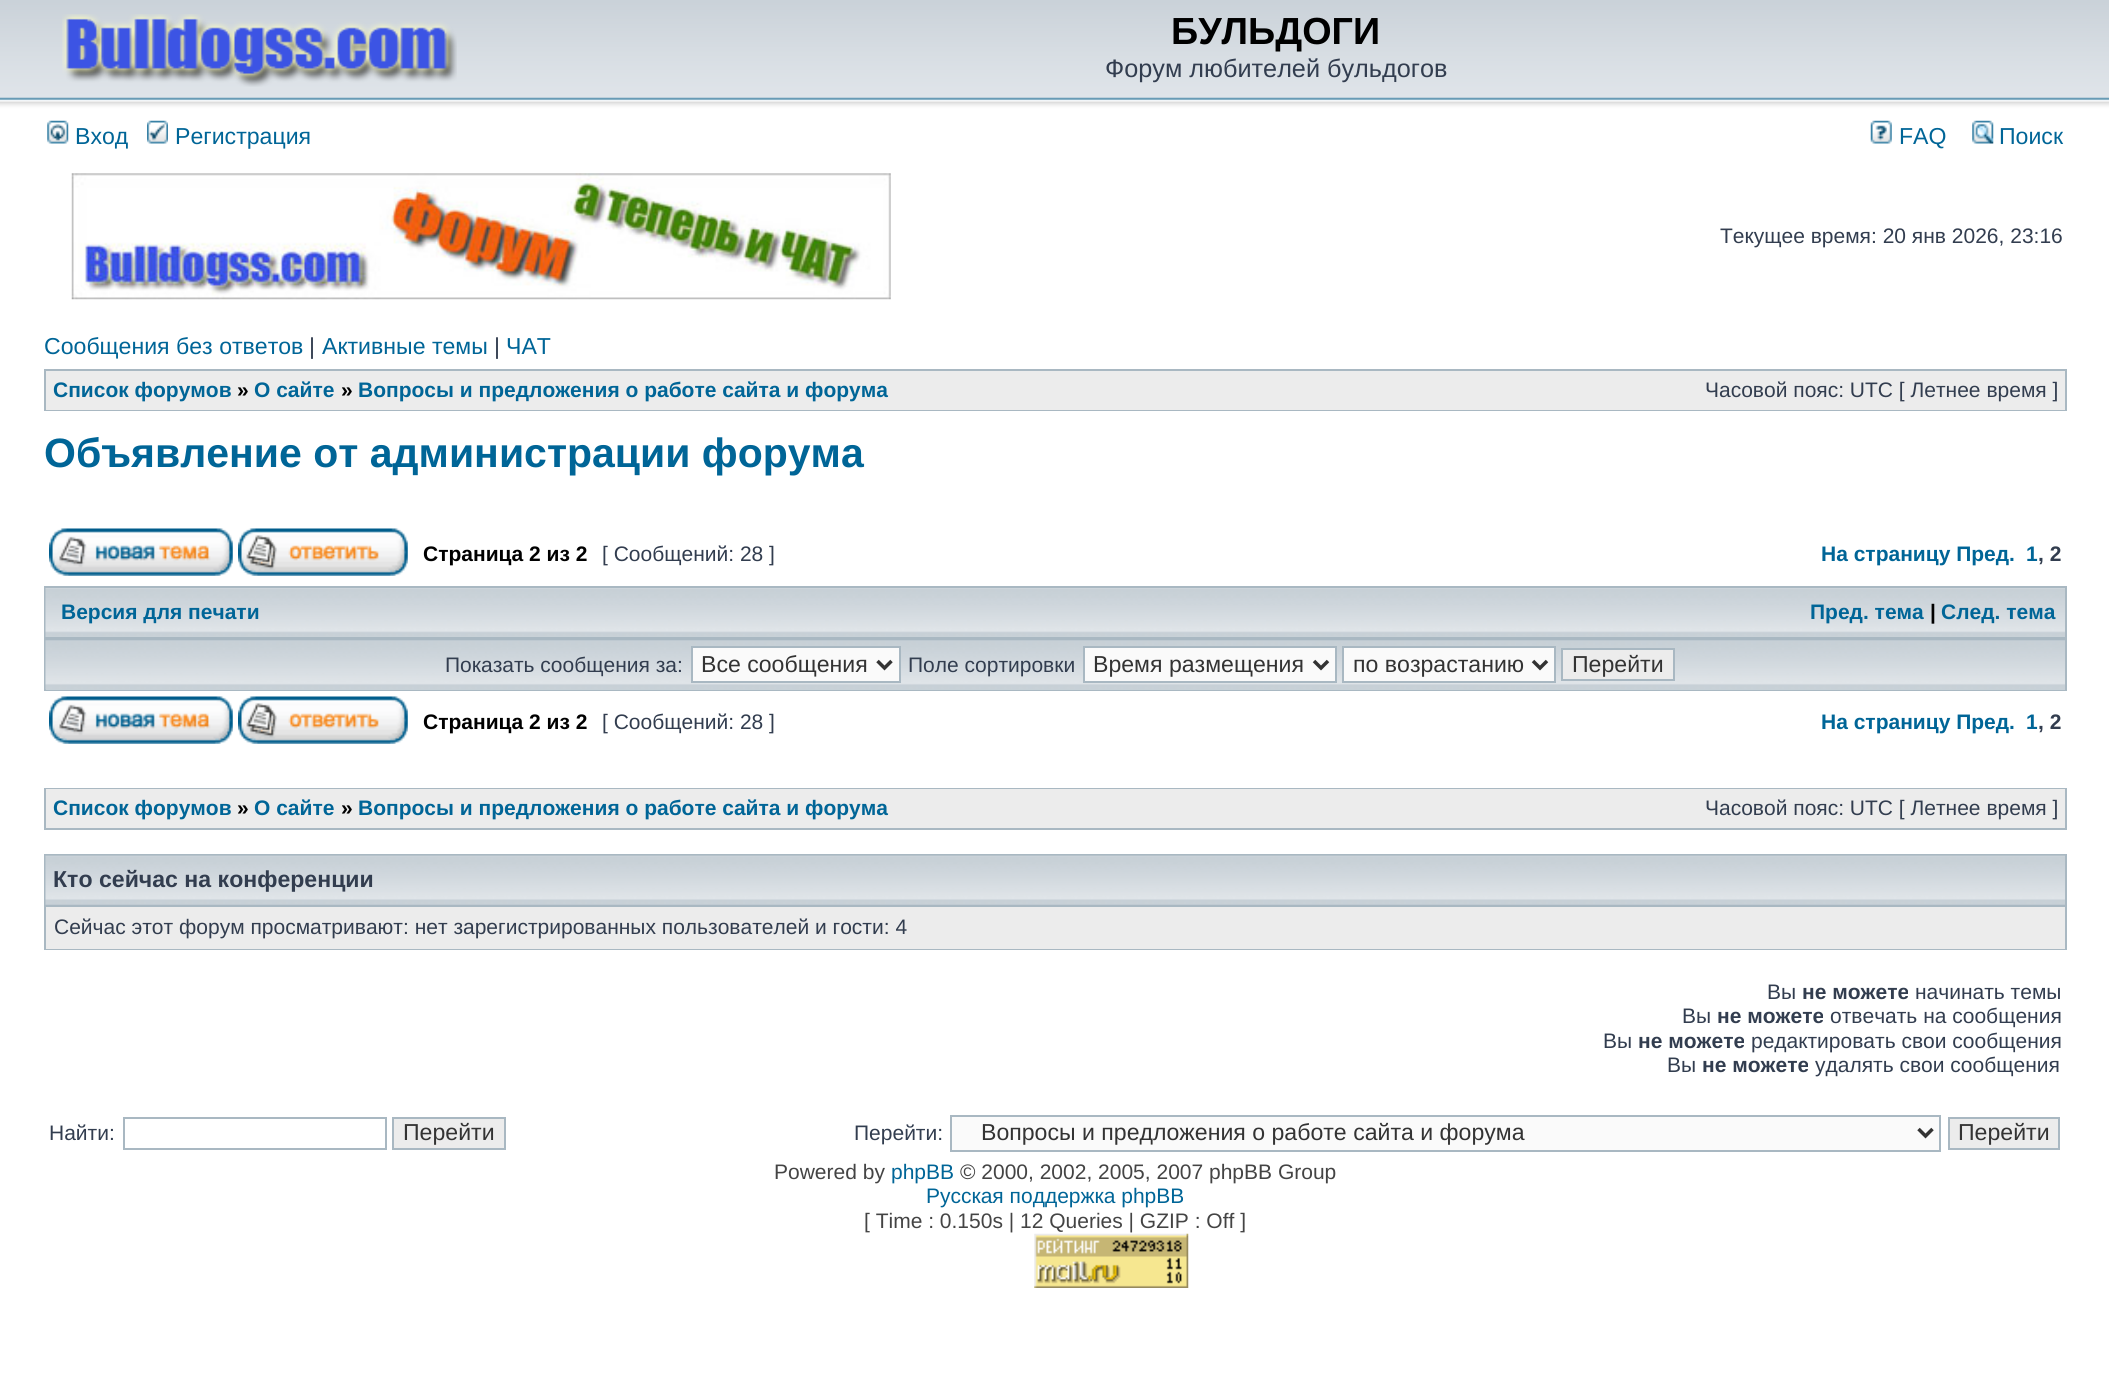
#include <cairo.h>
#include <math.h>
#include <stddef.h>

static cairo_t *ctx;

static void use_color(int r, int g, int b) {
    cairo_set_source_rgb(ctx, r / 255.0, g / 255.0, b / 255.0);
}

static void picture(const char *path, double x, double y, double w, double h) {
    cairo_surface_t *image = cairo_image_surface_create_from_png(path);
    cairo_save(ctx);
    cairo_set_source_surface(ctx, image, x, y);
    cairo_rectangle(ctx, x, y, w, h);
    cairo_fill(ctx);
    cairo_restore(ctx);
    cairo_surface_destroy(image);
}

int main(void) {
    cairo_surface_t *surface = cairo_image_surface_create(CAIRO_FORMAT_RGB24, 2109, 1396);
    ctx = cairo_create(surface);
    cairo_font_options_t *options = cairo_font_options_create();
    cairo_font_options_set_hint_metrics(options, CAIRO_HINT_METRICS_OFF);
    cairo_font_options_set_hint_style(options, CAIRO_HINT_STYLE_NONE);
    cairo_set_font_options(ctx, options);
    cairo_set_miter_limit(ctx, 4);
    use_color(255, 255, 255);
    cairo_paint(ctx);
    picture("img1.png", 0, 0, 2109, 117);
    picture("img2.png", 62, 14, 395, 73);
    cairo_select_font_face(ctx, "Liberation Sans", CAIRO_FONT_SLANT_NORMAL, CAIRO_FONT_WEIGHT_BOLD);
    cairo_set_font_size(ctx, 37.75);
    use_color(0, 0, 0);
    cairo_move_to(ctx, 1171, 44);
    cairo_show_text(ctx, "БУЛЬДОГИ");
    cairo_select_font_face(ctx, "Liberation Sans", CAIRO_FONT_SLANT_NORMAL, CAIRO_FONT_WEIGHT_NORMAL);
    cairo_set_font_size(ctx, 25.25);
    use_color(50, 61, 79);
    cairo_move_to(ctx, 1105, 77);
    cairo_show_text(ctx, "Форум любителей бульдогов");
    picture("img3.png", 47, 120, 22, 24);
    cairo_set_font_size(ctx, 23.1);
    use_color(0, 101, 151);
    cairo_move_to(ctx, 75, 144);
    cairo_show_text(ctx, "Вход");
    picture("img4.png", 147, 120, 21, 24);
    cairo_move_to(ctx, 175, 144);
    cairo_show_text(ctx, "Регистрация");
    picture("img5.png", 1870, 120, 22, 24);
    cairo_move_to(ctx, 1899, 144);
    cairo_show_text(ctx, "FAQ");
    picture("img6.png", 1972, 120, 22, 24);
    cairo_move_to(ctx, 1999, 144);
    cairo_show_text(ctx, "Поиск");
    picture("img7.png", 71, 173, 820, 127);
    cairo_set_font_size(ctx, 21);
    use_color(50, 61, 79);
    cairo_move_to(ctx, 1720, 243);
    cairo_show_text(ctx, "Текущее время: 20 янв 2026, 23:16");
    cairo_set_font_size(ctx, 23.1);
    use_color(0, 101, 151);
    cairo_move_to(ctx, 44, 354);
    cairo_show_text(ctx, "Сообщения без ответов");
    use_color(50, 61, 79);
    cairo_move_to(ctx, 309, 354);
    cairo_show_text(ctx, "|");
    use_color(0, 101, 151);
    cairo_move_to(ctx, 322, 354);
    cairo_show_text(ctx, "Активные темы");
    use_color(50, 61, 79);
    cairo_move_to(ctx, 494, 354);
    cairo_show_text(ctx, "|");
    use_color(0, 101, 151);
    cairo_move_to(ctx, 506, 354);
    cairo_show_text(ctx, "ЧАТ");
    use_color(169, 184, 194);
    cairo_rectangle(ctx, 44, 369, 2023, 42);
    cairo_fill(ctx);
    use_color(236, 236, 236);
    cairo_rectangle(ctx, 46, 371, 2019, 39);
    cairo_fill(ctx);
    cairo_select_font_face(ctx, "Liberation Sans", CAIRO_FONT_SLANT_NORMAL, CAIRO_FONT_WEIGHT_BOLD);
    cairo_set_font_size(ctx, 21);
    use_color(0, 101, 151);
    cairo_move_to(ctx, 53, 397);
    cairo_show_text(ctx, "Список форумов");
    use_color(0, 0, 0);
    cairo_move_to(ctx, 237, 397);
    cairo_show_text(ctx, "»");
    use_color(0, 101, 151);
    cairo_move_to(ctx, 254, 397);
    cairo_show_text(ctx, "О сайте");
    use_color(0, 0, 0);
    cairo_move_to(ctx, 341, 397);
    cairo_show_text(ctx, "»");
    use_color(0, 101, 151);
    cairo_move_to(ctx, 358, 397);
    cairo_show_text(ctx, "Вопросы и предложения о работе сайта и форума");
    cairo_select_font_face(ctx, "Liberation Sans", CAIRO_FONT_SLANT_NORMAL, CAIRO_FONT_WEIGHT_NORMAL);
    use_color(50, 61, 79);
    cairo_move_to(ctx, 1705, 397);
    cairo_show_text(ctx, "Часовой пояс: UTC [ Летнее время ]");
    cairo_select_font_face(ctx, "Liberation Sans", CAIRO_FONT_SLANT_NORMAL, CAIRO_FONT_WEIGHT_BOLD);
    cairo_set_font_size(ctx, 41);
    use_color(0, 101, 151);
    cairo_move_to(ctx, 44, 467);
    cairo_show_text(ctx, "Объявление от администрации форума");
    picture("img8.png", 49, 528, 184, 48);
    picture("img9.png", 238, 528, 170, 48);
    cairo_set_font_size(ctx, 21);
    use_color(0, 0, 0);
    cairo_move_to(ctx, 423, 561);
    cairo_show_text(ctx, "Страница 2 из 2");
    cairo_select_font_face(ctx, "Liberation Sans", CAIRO_FONT_SLANT_NORMAL, CAIRO_FONT_WEIGHT_NORMAL);
    use_color(50, 61, 79);
    cairo_move_to(ctx, 602, 561);
    cairo_show_text(ctx, "[ Сообщений: 28 ]");
    cairo_select_font_face(ctx, "Liberation Sans", CAIRO_FONT_SLANT_NORMAL, CAIRO_FONT_WEIGHT_BOLD);
    use_color(0, 101, 151);
    cairo_move_to(ctx, 1821, 561);
    cairo_show_text(ctx, "На страницу Пред.");
    cairo_move_to(ctx, 2026, 561);
    cairo_show_text(ctx, "1");
    use_color(50, 61, 79);
    cairo_move_to(ctx, 2038, 561);
    cairo_show_text(ctx, ", 2");
    use_color(169, 184, 194);
    cairo_rectangle(ctx, 44, 586, 2023, 105);
    cairo_fill(ctx);
    picture("img10.png", 45, 588, 2020, 49);
    use_color(0, 101, 151);
    cairo_move_to(ctx, 61, 619);
    cairo_show_text(ctx, "Версия для печати");
    cairo_move_to(ctx, 1810, 619);
    cairo_show_text(ctx, "Пред. тема");
    use_color(0, 0, 0);
    cairo_move_to(ctx, 1930, 619);
    cairo_show_text(ctx, "|");
    use_color(0, 101, 151);
    cairo_move_to(ctx, 1941, 619);
    cairo_show_text(ctx, "След. тема");
    use_color(199, 208, 215);
    cairo_rectangle(ctx, 46, 689, 2019, 1);
    cairo_fill(ctx);
    picture("img11.png", 45, 640, 2020, 50);
    cairo_select_font_face(ctx, "Liberation Sans", CAIRO_FONT_SLANT_NORMAL, CAIRO_FONT_WEIGHT_NORMAL);
    use_color(50, 61, 79);
    cairo_move_to(ctx, 445, 672);
    cairo_show_text(ctx, "Показать сообщения за:");
    use_color(250, 250, 250);
    cairo_rectangle(ctx, 692, 647, 208, 35);
    cairo_fill_preserve(ctx);
    use_color(169, 184, 194);
    cairo_stroke(ctx);
    cairo_new_path(ctx);
    cairo_move_to(ctx, 877.5, 661);
    cairo_line_to(ctx, 884.5, 668);
    cairo_line_to(ctx, 891.5, 661);
    use_color(51, 51, 51);
    cairo_set_line_width(ctx, 3.5);
    cairo_stroke(ctx);
    cairo_set_font_size(ctx, 23.1);
    cairo_move_to(ctx, 701, 672);
    cairo_show_text(ctx, "Все сообщения");
    cairo_set_font_size(ctx, 21);
    use_color(50, 61, 79);
    cairo_move_to(ctx, 908, 672);
    cairo_show_text(ctx, "Поле сортировки");
    use_color(250, 250, 250);
    cairo_rectangle(ctx, 1084, 647, 252, 35);
    cairo_fill_preserve(ctx);
    use_color(169, 184, 194);
    cairo_set_line_width(ctx, 2);
    cairo_stroke(ctx);
    cairo_new_path(ctx);
    cairo_move_to(ctx, 1314, 661);
    cairo_line_to(ctx, 1321, 668);
    cairo_line_to(ctx, 1328, 661);
    use_color(51, 51, 51);
    cairo_set_line_width(ctx, 3.5);
    cairo_stroke(ctx);
    cairo_set_font_size(ctx, 23.1);
    cairo_move_to(ctx, 1093, 672);
    cairo_show_text(ctx, "Время размещения");
    use_color(250, 250, 250);
    cairo_rectangle(ctx, 1343, 647, 212, 35);
    cairo_fill_preserve(ctx);
    use_color(169, 184, 194);
    cairo_set_line_width(ctx, 2);
    cairo_stroke(ctx);
    cairo_new_path(ctx);
    cairo_move_to(ctx, 1533, 661);
    cairo_line_to(ctx, 1540, 668);
    cairo_line_to(ctx, 1547, 661);
    use_color(51, 51, 51);
    cairo_set_line_width(ctx, 3.5);
    cairo_stroke(ctx);
    cairo_move_to(ctx, 1353, 672);
    cairo_show_text(ctx, "по возрастанию");
    use_color(236, 236, 236);
    cairo_rectangle(ctx, 1562, 649, 112, 31);
    cairo_fill_preserve(ctx);
    use_color(169, 184, 194);
    cairo_set_line_width(ctx, 2);
    cairo_stroke(ctx);
    use_color(51, 51, 51);
    cairo_move_to(ctx, 1572, 672);
    cairo_show_text(ctx, "Перейти");
    picture("img8.png", 49, 696, 184, 48);
    picture("img9.png", 238, 696, 170, 48);
    cairo_select_font_face(ctx, "Liberation Sans", CAIRO_FONT_SLANT_NORMAL, CAIRO_FONT_WEIGHT_BOLD);
    cairo_set_font_size(ctx, 21);
    use_color(0, 0, 0);
    cairo_move_to(ctx, 423, 729);
    cairo_show_text(ctx, "Страница 2 из 2");
    cairo_select_font_face(ctx, "Liberation Sans", CAIRO_FONT_SLANT_NORMAL, CAIRO_FONT_WEIGHT_NORMAL);
    use_color(50, 61, 79);
    cairo_move_to(ctx, 602, 729);
    cairo_show_text(ctx, "[ Сообщений: 28 ]");
    cairo_select_font_face(ctx, "Liberation Sans", CAIRO_FONT_SLANT_NORMAL, CAIRO_FONT_WEIGHT_BOLD);
    use_color(0, 101, 151);
    cairo_move_to(ctx, 1821, 729);
    cairo_show_text(ctx, "На страницу Пред.");
    cairo_move_to(ctx, 2026, 729);
    cairo_show_text(ctx, "1");
    use_color(50, 61, 79);
    cairo_move_to(ctx, 2038, 729);
    cairo_show_text(ctx, ", 2");
    use_color(169, 184, 194);
    cairo_rectangle(ctx, 44, 788, 2023, 42);
    cairo_fill(ctx);
    use_color(236, 236, 236);
    cairo_rectangle(ctx, 46, 789, 2019, 39);
    cairo_fill(ctx);
    use_color(0, 101, 151);
    cairo_move_to(ctx, 53, 815);
    cairo_show_text(ctx, "Список форумов");
    use_color(0, 0, 0);
    cairo_move_to(ctx, 237, 815);
    cairo_show_text(ctx, "»");
    use_color(0, 101, 151);
    cairo_move_to(ctx, 254, 815);
    cairo_show_text(ctx, "О сайте");
    use_color(0, 0, 0);
    cairo_move_to(ctx, 341, 815);
    cairo_show_text(ctx, "»");
    use_color(0, 101, 151);
    cairo_move_to(ctx, 358, 815);
    cairo_show_text(ctx, "Вопросы и предложения о работе сайта и форума");
    cairo_select_font_face(ctx, "Liberation Sans", CAIRO_FONT_SLANT_NORMAL, CAIRO_FONT_WEIGHT_NORMAL);
    use_color(50, 61, 79);
    cairo_move_to(ctx, 1705, 815);
    cairo_show_text(ctx, "Часовой пояс: UTC [ Летнее время ]");
    use_color(169, 184, 194);
    cairo_rectangle(ctx, 44, 854, 2023, 96);
    cairo_fill(ctx);
    picture("img12.png", 45, 855, 2020, 50);
    cairo_select_font_face(ctx, "Liberation Sans", CAIRO_FONT_SLANT_NORMAL, CAIRO_FONT_WEIGHT_BOLD);
    cairo_set_font_size(ctx, 23.1);
    use_color(50, 61, 79);
    cairo_move_to(ctx, 53, 887);
    cairo_show_text(ctx, "Кто сейчас на конференции");
    use_color(236, 236, 236);
    cairo_rectangle(ctx, 46, 907, 2019, 42);
    cairo_fill(ctx);
    cairo_select_font_face(ctx, "Liberation Sans", CAIRO_FONT_SLANT_NORMAL, CAIRO_FONT_WEIGHT_NORMAL);
    cairo_set_font_size(ctx, 21);
    use_color(50, 61, 79);
    cairo_move_to(ctx, 54, 934);
    cairo_show_text(ctx, "Сейчас этот форум просматривают: нет зарегистрированных пользователей и гости: 4");
    cairo_move_to(ctx, 1767, 999);
    cairo_show_text(ctx, "Вы");
    cairo_select_font_face(ctx, "Liberation Sans", CAIRO_FONT_SLANT_NORMAL, CAIRO_FONT_WEIGHT_BOLD);
    cairo_move_to(ctx, 1802, 999);
    cairo_show_text(ctx, "не можете");
    cairo_select_font_face(ctx, "Liberation Sans", CAIRO_FONT_SLANT_NORMAL, CAIRO_FONT_WEIGHT_NORMAL);
    cairo_move_to(ctx, 1915, 999);
    cairo_show_text(ctx, "начинать темы");
    cairo_move_to(ctx, 1682, 1023);
    cairo_show_text(ctx, "Вы");
    cairo_select_font_face(ctx, "Liberation Sans", CAIRO_FONT_SLANT_NORMAL, CAIRO_FONT_WEIGHT_BOLD);
    cairo_move_to(ctx, 1717, 1023);
    cairo_show_text(ctx, "не можете");
    cairo_select_font_face(ctx, "Liberation Sans", CAIRO_FONT_SLANT_NORMAL, CAIRO_FONT_WEIGHT_NORMAL);
    cairo_move_to(ctx, 1830, 1023);
    cairo_show_text(ctx, "отвечать на сообщения");
    cairo_move_to(ctx, 1603, 1048);
    cairo_show_text(ctx, "Вы");
    cairo_select_font_face(ctx, "Liberation Sans", CAIRO_FONT_SLANT_NORMAL, CAIRO_FONT_WEIGHT_BOLD);
    cairo_move_to(ctx, 1638, 1048);
    cairo_show_text(ctx, "не можете");
    cairo_select_font_face(ctx, "Liberation Sans", CAIRO_FONT_SLANT_NORMAL, CAIRO_FONT_WEIGHT_NORMAL);
    cairo_move_to(ctx, 1751, 1048);
    cairo_show_text(ctx, "редактировать свои сообщения");
    cairo_move_to(ctx, 1667, 1072);
    cairo_show_text(ctx, "Вы");
    cairo_select_font_face(ctx, "Liberation Sans", CAIRO_FONT_SLANT_NORMAL, CAIRO_FONT_WEIGHT_BOLD);
    cairo_move_to(ctx, 1702, 1072);
    cairo_show_text(ctx, "не можете");
    cairo_select_font_face(ctx, "Liberation Sans", CAIRO_FONT_SLANT_NORMAL, CAIRO_FONT_WEIGHT_NORMAL);
    cairo_move_to(ctx, 1815, 1072);
    cairo_show_text(ctx, "удалять свои сообщения");
    cairo_move_to(ctx, 49, 1140);
    cairo_show_text(ctx, "Найти:");
    cairo_rectangle(ctx, 124, 1118, 262, 31);
    use_color(169, 184, 194);
    cairo_stroke(ctx);
    use_color(236, 236, 236);
    cairo_rectangle(ctx, 393, 1118, 112, 31);
    cairo_fill_preserve(ctx);
    use_color(169, 184, 194);
    cairo_stroke(ctx);
    cairo_set_font_size(ctx, 23.1);
    use_color(51, 51, 51);
    cairo_move_to(ctx, 403, 1140);
    cairo_show_text(ctx, "Перейти");
    cairo_set_font_size(ctx, 21);
    use_color(50, 61, 79);
    cairo_move_to(ctx, 854, 1140);
    cairo_show_text(ctx, "Перейти:");
    use_color(250, 250, 250);
    cairo_rectangle(ctx, 951, 1116, 989, 35);
    cairo_fill_preserve(ctx);
    use_color(169, 184, 194);
    cairo_stroke(ctx);
    cairo_new_path(ctx);
    cairo_move_to(ctx, 1918.5, 1129);
    cairo_line_to(ctx, 1925.5, 1136);
    cairo_line_to(ctx, 1932.5, 1129);
    use_color(51, 51, 51);
    cairo_set_line_width(ctx, 3.5);
    cairo_stroke(ctx);
    cairo_set_font_size(ctx, 23.1);
    cairo_move_to(ctx, 981, 1140);
    cairo_show_text(ctx, "Вопросы и предложения о работе сайта и форума");
    use_color(236, 236, 236);
    cairo_rectangle(ctx, 1949, 1118, 110, 31);
    cairo_fill_preserve(ctx);
    use_color(169, 184, 194);
    cairo_set_line_width(ctx, 2);
    cairo_stroke(ctx);
    use_color(51, 51, 51);
    cairo_move_to(ctx, 1958, 1140);
    cairo_show_text(ctx, "Перейти");
    cairo_set_font_size(ctx, 21);
    use_color(68, 68, 68);
    cairo_move_to(ctx, 774, 1179);
    cairo_show_text(ctx, "Powered by");
    use_color(0, 101, 151);
    cairo_move_to(ctx, 891, 1179);
    cairo_show_text(ctx, "phpBB");
    use_color(68, 68, 68);
    cairo_move_to(ctx, 960, 1179);
    cairo_show_text(ctx, "© 2000, 2002, 2005, 2007 phpBB Group");
    use_color(0, 101, 151);
    cairo_move_to(ctx, 926, 1203);
    cairo_show_text(ctx, "Русская поддержка phpBB");
    use_color(68, 68, 68);
    cairo_move_to(ctx, 864, 1228);
    cairo_show_text(ctx, "[ Time : 0.150s | 12 Queries | GZIP : Off ]");
    picture("img13.png", 1034, 1233, 155, 55);
    cairo_surface_write_to_png(surface, "result.png");
    cairo_font_options_destroy(options);
    cairo_destroy(ctx);
    cairo_surface_destroy(surface);
    return 0;
}
